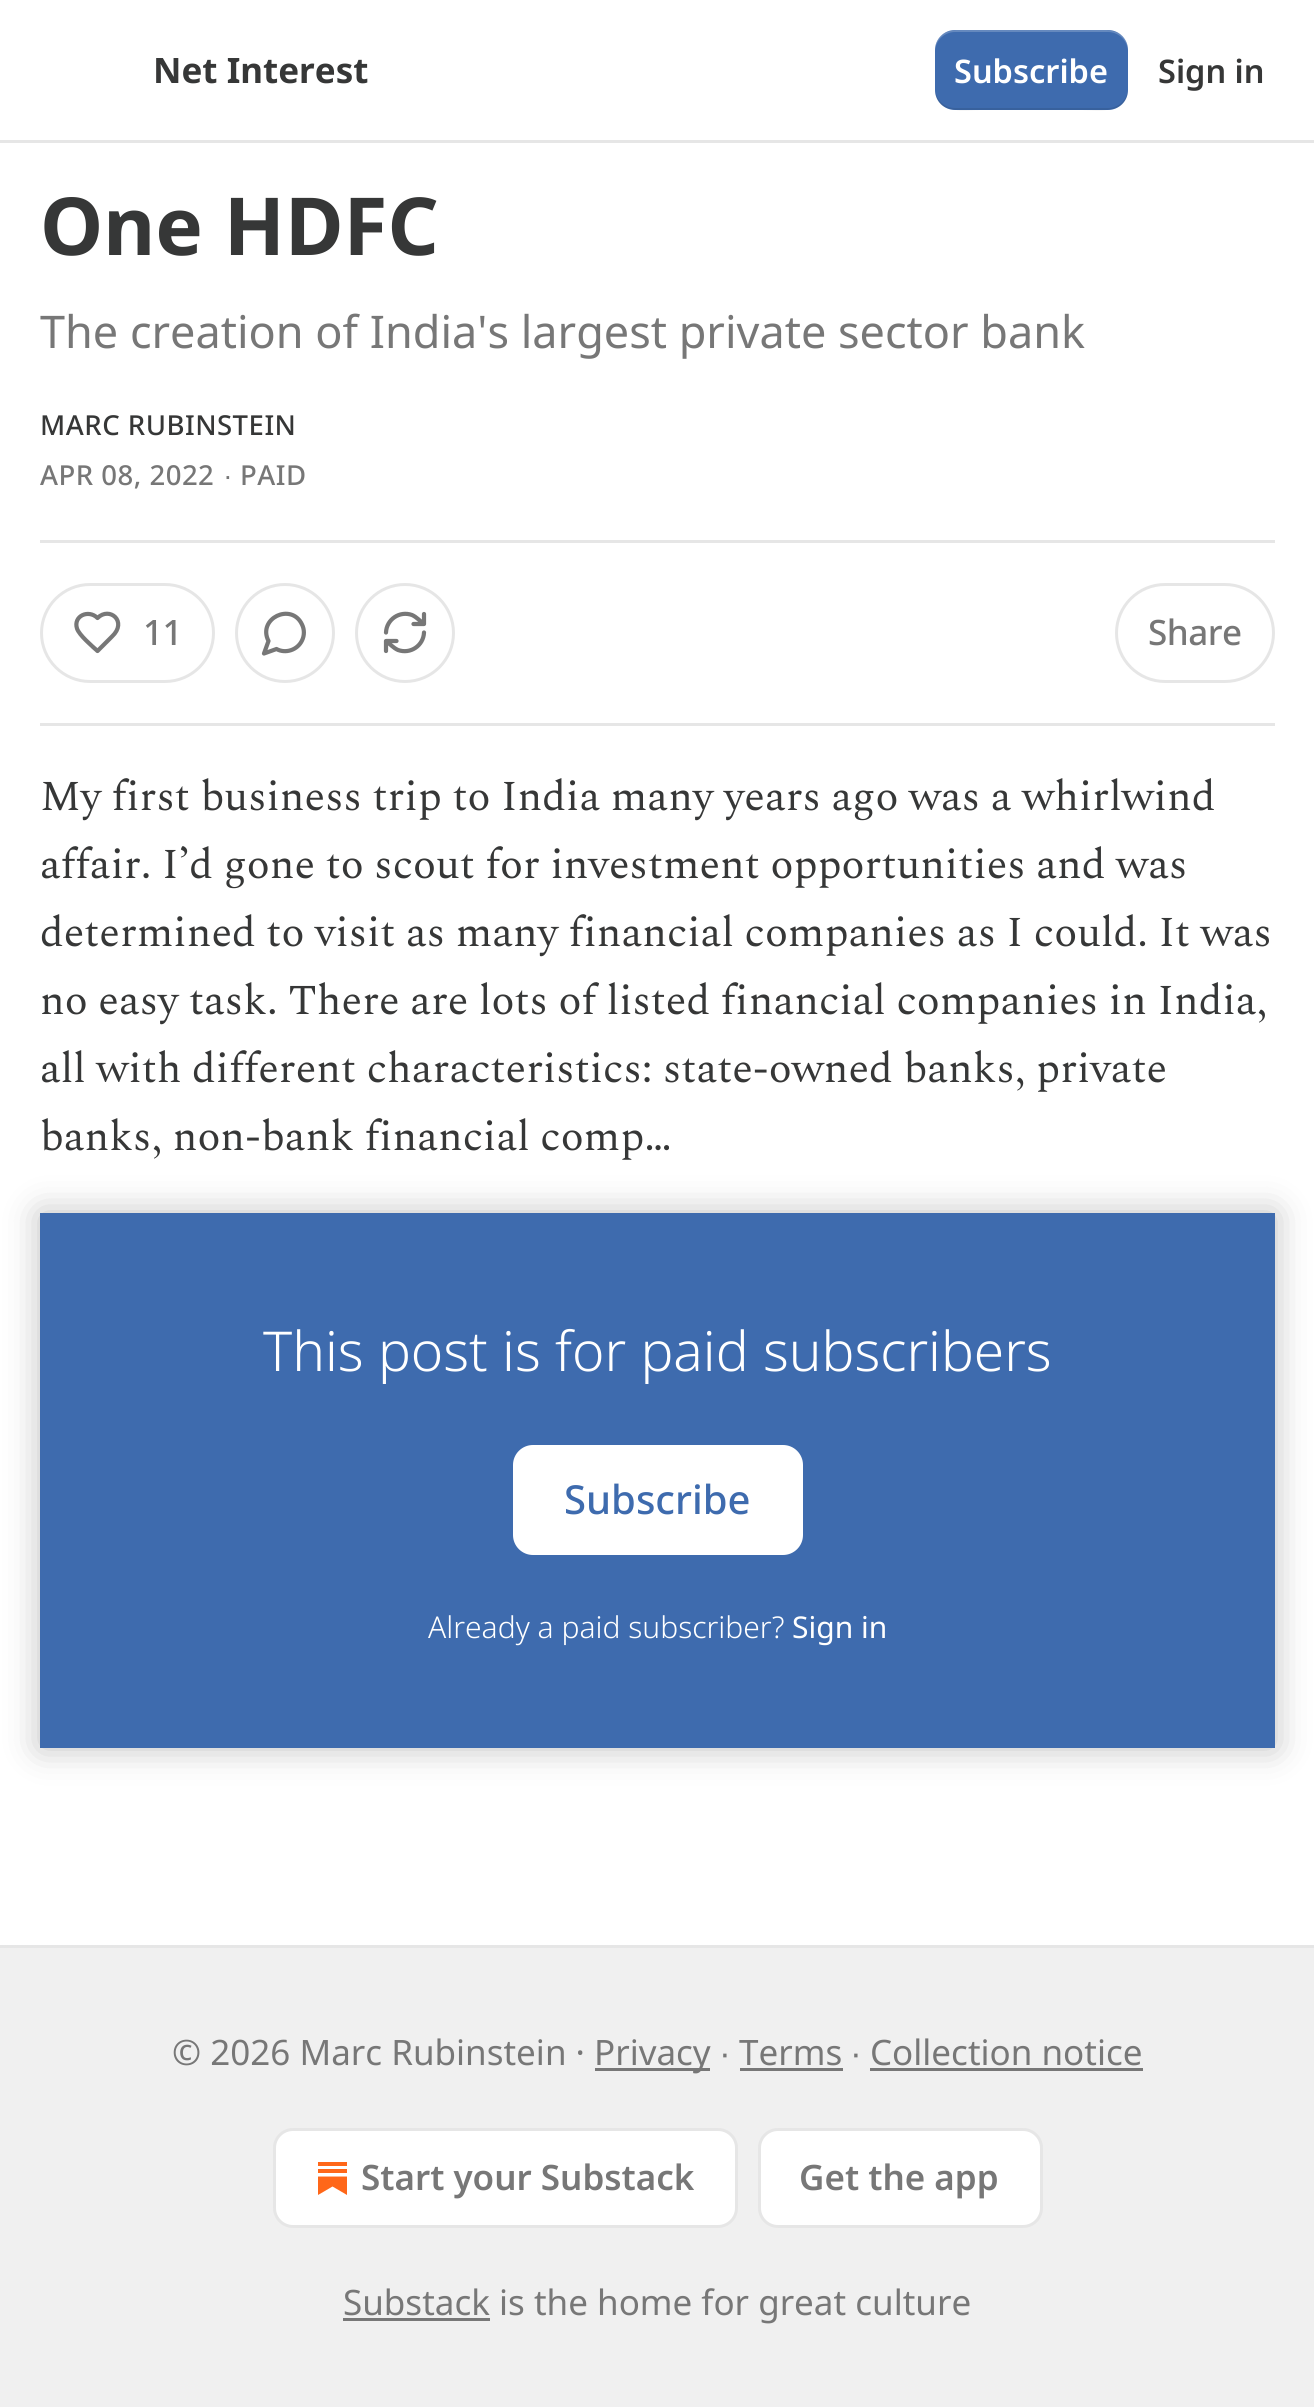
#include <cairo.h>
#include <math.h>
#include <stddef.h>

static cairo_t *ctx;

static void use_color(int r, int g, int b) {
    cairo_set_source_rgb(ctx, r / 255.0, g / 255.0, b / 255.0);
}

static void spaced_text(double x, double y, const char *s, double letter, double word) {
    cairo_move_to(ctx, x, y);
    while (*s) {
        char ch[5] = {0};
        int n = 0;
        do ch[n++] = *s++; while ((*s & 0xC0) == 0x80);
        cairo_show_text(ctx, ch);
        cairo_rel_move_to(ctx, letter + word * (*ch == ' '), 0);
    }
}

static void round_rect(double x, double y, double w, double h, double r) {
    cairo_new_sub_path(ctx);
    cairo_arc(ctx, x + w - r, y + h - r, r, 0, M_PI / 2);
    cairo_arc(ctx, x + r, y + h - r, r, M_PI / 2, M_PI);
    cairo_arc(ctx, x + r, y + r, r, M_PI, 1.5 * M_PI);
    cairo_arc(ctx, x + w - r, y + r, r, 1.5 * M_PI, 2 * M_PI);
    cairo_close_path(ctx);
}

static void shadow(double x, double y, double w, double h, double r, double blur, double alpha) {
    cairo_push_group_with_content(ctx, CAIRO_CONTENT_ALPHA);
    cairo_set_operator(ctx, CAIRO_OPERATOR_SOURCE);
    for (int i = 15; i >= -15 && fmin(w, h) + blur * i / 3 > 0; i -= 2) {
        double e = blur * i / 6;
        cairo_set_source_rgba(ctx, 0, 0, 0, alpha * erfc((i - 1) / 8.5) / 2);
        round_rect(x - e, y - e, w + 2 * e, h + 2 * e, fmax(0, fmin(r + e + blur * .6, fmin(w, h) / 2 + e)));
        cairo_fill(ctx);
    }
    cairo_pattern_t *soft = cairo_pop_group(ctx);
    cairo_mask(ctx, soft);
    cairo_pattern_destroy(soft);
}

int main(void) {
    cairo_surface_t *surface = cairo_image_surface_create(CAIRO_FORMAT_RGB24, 1314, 2407);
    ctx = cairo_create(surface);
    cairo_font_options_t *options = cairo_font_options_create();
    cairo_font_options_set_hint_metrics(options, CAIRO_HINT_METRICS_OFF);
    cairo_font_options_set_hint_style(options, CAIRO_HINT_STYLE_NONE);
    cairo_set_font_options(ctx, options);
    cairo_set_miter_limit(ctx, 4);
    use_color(255, 255, 255);
    cairo_paint(ctx);
    use_color(230, 230, 230);
    cairo_rectangle(ctx, 0, 140, 1314, 3);
    cairo_fill(ctx);
    cairo_select_font_face(ctx, "Noto Sans", CAIRO_FONT_SLANT_NORMAL, CAIRO_FONT_WEIGHT_BOLD);
    cairo_set_font_size(ctx, 35);
    use_color(54, 55, 55);
    cairo_move_to(ctx, 153, 83);
    cairo_show_text(ctx, "Net Interest");
    use_color(62, 107, 174);
    round_rect(935, 30, 193, 80, 20);
    cairo_fill(ctx);
    cairo_set_source_rgba(ctx, 0, 0, 0, 0.1);
    cairo_new_path(ctx);
    cairo_move_to(ctx, 935, 88);
    cairo_curve_to(ctx, 935, 115, 961, 110, 980, 110);
    cairo_line_to(ctx, 1082, 110);
    cairo_curve_to(ctx, 1102, 110, 1128, 115, 1128, 88);
    cairo_curve_to(ctx, 1128, 99, 1119, 108, 1108, 108);
    cairo_line_to(ctx, 955, 108);
    cairo_curve_to(ctx, 944, 108, 935, 99, 935, 88);
    cairo_close_path(ctx);
    cairo_fill(ctx);
    cairo_set_source_rgba(ctx, 1, 1, 1, 0.2);
    cairo_new_path(ctx);
    cairo_move_to(ctx, 955, 32);
    cairo_line_to(ctx, 1108, 32);
    cairo_curve_to(ctx, 1119, 32, 1128, 41, 1128, 52);
    cairo_curve_to(ctx, 1128, 25, 1102, 30, 1082, 30);
    cairo_line_to(ctx, 980, 30);
    cairo_curve_to(ctx, 961, 30, 935, 25, 935, 52);
    cairo_curve_to(ctx, 935, 41, 944, 32, 955, 32);
    cairo_close_path(ctx);
    cairo_fill(ctx);
    cairo_select_font_face(ctx, "Noto Sans SemiBold", CAIRO_FONT_SLANT_NORMAL, CAIRO_FONT_WEIGHT_NORMAL);
    cairo_set_font_size(ctx, 32.5);
    use_color(255, 255, 255);
    cairo_move_to(ctx, 954, 83);
    cairo_show_text(ctx, "Subscribe");
    use_color(54, 55, 55);
    cairo_move_to(ctx, 1158, 83);
    cairo_show_text(ctx, "Sign in");
    cairo_select_font_face(ctx, "Noto Sans", CAIRO_FONT_SLANT_NORMAL, CAIRO_FONT_WEIGHT_BOLD);
    cairo_set_font_size(ctx, 80);
    cairo_move_to(ctx, 40, 255);
    cairo_show_text(ctx, "One HDFC");
    cairo_select_font_face(ctx, "Noto Sans", CAIRO_FONT_SLANT_NORMAL, CAIRO_FONT_WEIGHT_NORMAL);
    cairo_set_font_size(ctx, 45);
    use_color(119, 119, 119);
    cairo_move_to(ctx, 40, 348);
    cairo_show_text(ctx, "The creation of India's largest private sector bank");
    cairo_select_font_face(ctx, "Noto Sans Medium", CAIRO_FONT_SLANT_NORMAL, CAIRO_FONT_WEIGHT_NORMAL);
    cairo_set_font_size(ctx, 27.5);
    use_color(54, 55, 55);
    spaced_text(40, 435, "MARC RUBINSTEIN", 0.5, 0);
    use_color(119, 119, 119);
    spaced_text(40, 485, "APR 08, 2022", 0.5, 0);
    cairo_select_font_face(ctx, "Liberation Sans", CAIRO_FONT_SLANT_NORMAL, CAIRO_FONT_WEIGHT_NORMAL);
    spaced_text(224, 485, "∙", 0.5, 0);
    cairo_select_font_face(ctx, "Noto Sans Medium", CAIRO_FONT_SLANT_NORMAL, CAIRO_FONT_WEIGHT_NORMAL);
    spaced_text(240, 485, "PAID", 0.5, 0);
    use_color(230, 230, 230);
    cairo_rectangle(ctx, 40, 540, 1235, 3);
    cairo_fill(ctx);
    cairo_rectangle(ctx, 40, 723, 1235, 3);
    cairo_fill(ctx);
    round_rect(41.5, 584.5, 172, 97, 48.5);
    cairo_set_line_width(ctx, 3);
    cairo_stroke(ctx);
    cairo_new_path(ctx);
    cairo_move_to(ctx, 112, 636.5);
    cairo_curve_to(ctx, 128, 621.5, 109.5, 606, 97.5, 618);
    cairo_curve_to(ctx, 88.5, 609, 73, 616, 77, 628.5);
    cairo_curve_to(ctx, 79, 635, 92.5, 646.5, 97.5, 651);
    cairo_close_path(ctx);
    use_color(119, 119, 119);
    cairo_set_line_width(ctx, 4.2);
    cairo_set_line_cap(ctx, CAIRO_LINE_CAP_ROUND);
    cairo_set_line_join(ctx, CAIRO_LINE_JOIN_ROUND);
    cairo_stroke(ctx);
    cairo_set_font_size(ctx, 35);
    spaced_text(143, 645, "11", -0.5, 0);
    cairo_new_path(ctx);
    cairo_arc(ctx, 285, 633, 48.5, 0, 2 * M_PI);
    use_color(230, 230, 230);
    cairo_set_line_width(ctx, 3);
    cairo_set_line_cap(ctx, CAIRO_LINE_CAP_BUTT);
    cairo_set_line_join(ctx, CAIRO_LINE_JOIN_MITER);
    cairo_stroke(ctx);
    cairo_new_path(ctx);
    cairo_move_to(ctx, 276.5, 649);
    cairo_curve_to(ctx, 285.5, 654, 297.5, 650, 302, 640.5);
    cairo_curve_to(ctx, 304.5, 635.5, 304.5, 629.5, 302, 624.5);
    cairo_curve_to(ctx, 291.5, 602, 257, 618.5, 268.5, 641);
    cairo_line_to(ctx, 264, 653.5);
    cairo_close_path(ctx);
    use_color(119, 119, 119);
    cairo_set_line_width(ctx, 4.2);
    cairo_set_line_cap(ctx, CAIRO_LINE_CAP_ROUND);
    cairo_set_line_join(ctx, CAIRO_LINE_JOIN_ROUND);
    cairo_stroke(ctx);
    cairo_arc(ctx, 405, 633, 48.5, 0, 2 * M_PI);
    use_color(230, 230, 230);
    cairo_set_line_width(ctx, 3);
    cairo_set_line_cap(ctx, CAIRO_LINE_CAP_BUTT);
    cairo_set_line_join(ctx, CAIRO_LINE_JOIN_MITER);
    cairo_stroke(ctx);
    cairo_new_path(ctx);
    cairo_move_to(ctx, 424, 614);
    cairo_line_to(ctx, 424, 624);
    cairo_move_to(ctx, 424, 624);
    cairo_line_to(ctx, 413.5, 624);
    cairo_move_to(ctx, 424, 624);
    cairo_curve_to(ctx, 420, 621, 416.5, 617, 412, 615);
    cairo_curve_to(ctx, 399.5, 610.5, 386.5, 619.5, 386, 632.5);
    cairo_move_to(ctx, 386, 651);
    cairo_line_to(ctx, 386, 641);
    cairo_move_to(ctx, 386, 641);
    cairo_line_to(ctx, 396.5, 641);
    cairo_move_to(ctx, 386, 641);
    cairo_curve_to(ctx, 390, 644, 393.5, 648, 398, 650);
    cairo_curve_to(ctx, 410.5, 654.5, 423.5, 645.5, 424, 632.5);
    use_color(119, 119, 119);
    cairo_set_line_width(ctx, 4.2);
    cairo_set_line_cap(ctx, CAIRO_LINE_CAP_ROUND);
    cairo_set_line_join(ctx, CAIRO_LINE_JOIN_ROUND);
    cairo_stroke(ctx);
    round_rect(1116.5, 584.5, 157, 97, 48.5);
    use_color(230, 230, 230);
    cairo_set_line_width(ctx, 3);
    cairo_set_line_cap(ctx, CAIRO_LINE_CAP_BUTT);
    cairo_set_line_join(ctx, CAIRO_LINE_JOIN_MITER);
    cairo_stroke(ctx);
    use_color(119, 119, 119);
    spaced_text(1148, 645, "Share", -0.5, 0);
    cairo_select_font_face(ctx, "Spectral", CAIRO_FONT_SLANT_NORMAL, CAIRO_FONT_WEIGHT_NORMAL);
    cairo_set_font_size(ctx, 42.5);
    use_color(54, 55, 55);
    cairo_move_to(ctx, 40, 810);
    cairo_show_text(ctx, "My first business trip to India many years ago was a whirlwind");
    cairo_move_to(ctx, 40, 878);
    cairo_show_text(ctx, "affair. I’d gone to scout for investment opportunities and was");
    cairo_move_to(ctx, 40, 946);
    cairo_show_text(ctx, "determined to visit as many financial companies as I could. It was");
    cairo_move_to(ctx, 40, 1014);
    cairo_show_text(ctx, "no easy task. There are lots of listed financial companies in India,");
    cairo_move_to(ctx, 40, 1082);
    cairo_show_text(ctx, "all with different characteristics: state-owned banks, private");
    cairo_move_to(ctx, 40, 1150);
    cairo_show_text(ctx, "banks, non-bank financial comp…");
    use_color(62, 107, 174);
    cairo_rectangle(ctx, 40, 1213, 1235, 535);
    cairo_fill(ctx);
    use_color(255, 255, 255);
    round_rect(514.5, 1446.5, 287, 107, 18.5);
    cairo_fill_preserve(ctx);
    cairo_stroke(ctx);
    cairo_save(ctx);
    cairo_set_fill_rule(ctx, CAIRO_FILL_RULE_EVEN_ODD);
    cairo_new_path(ctx);
    cairo_move_to(ctx, 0, 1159);
    cairo_line_to(ctx, 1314, 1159);
    cairo_line_to(ctx, 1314, 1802);
    cairo_line_to(ctx, 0, 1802);
    cairo_close_path(ctx);
    cairo_move_to(ctx, 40, 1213);
    cairo_line_to(ctx, 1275, 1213);
    cairo_line_to(ctx, 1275, 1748);
    cairo_line_to(ctx, 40, 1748);
    cairo_close_path(ctx);
    cairo_clip(ctx);
    use_color(0, 0, 0);
    shadow(40, 1213, 1235, 535, 0, 17.5, 0.25);
    cairo_restore(ctx);
    cairo_select_font_face(ctx, "Noto Sans Light", CAIRO_FONT_SLANT_NORMAL, CAIRO_FONT_WEIGHT_NORMAL);
    cairo_set_font_size(ctx, 55);
    cairo_move_to(ctx, 263, 1371);
    cairo_show_text(ctx, "This post is for paid subscribers");
    cairo_select_font_face(ctx, "Noto Sans Medium", CAIRO_FONT_SLANT_NORMAL, CAIRO_FONT_WEIGHT_NORMAL);
    cairo_set_font_size(ctx, 40);
    use_color(62, 107, 174);
    cairo_move_to(ctx, 564, 1514);
    cairo_show_text(ctx, "Subscribe");
    cairo_select_font_face(ctx, "Noto Sans Light", CAIRO_FONT_SLANT_NORMAL, CAIRO_FONT_WEIGHT_NORMAL);
    cairo_set_font_size(ctx, 30);
    use_color(255, 255, 255);
    cairo_move_to(ctx, 428, 1638);
    cairo_show_text(ctx, "Already a paid subscriber?");
    cairo_select_font_face(ctx, "Noto Sans", CAIRO_FONT_SLANT_NORMAL, CAIRO_FONT_WEIGHT_NORMAL);
    cairo_move_to(ctx, 792, 1638);
    cairo_show_text(ctx, "Sign in");
    use_color(240, 240, 240);
    cairo_rectangle(ctx, 0, 1948, 1314, 459);
    cairo_fill(ctx);
    use_color(230, 230, 230);
    cairo_rectangle(ctx, 0, 1945, 1314, 3);
    cairo_fill(ctx);
    cairo_set_font_size(ctx, 35);
    use_color(119, 119, 119);
    cairo_move_to(ctx, 172, 2065);
    cairo_show_text(ctx, "© 2026 Marc Rubinstein ·");
    cairo_rectangle(ctx, 595, 2068, 115, 3);
    cairo_fill(ctx);
    cairo_move_to(ctx, 594, 2065);
    cairo_show_text(ctx, "Privacy");
    cairo_select_font_face(ctx, "Liberation Sans", CAIRO_FONT_SLANT_NORMAL, CAIRO_FONT_WEIGHT_NORMAL);
    cairo_move_to(ctx, 720, 2065);
    cairo_show_text(ctx, "∙");
    cairo_select_font_face(ctx, "Noto Sans", CAIRO_FONT_SLANT_NORMAL, CAIRO_FONT_WEIGHT_NORMAL);
    cairo_move_to(ctx, 739, 2065);
    cairo_show_text(ctx, "Terms");
    cairo_rectangle(ctx, 740, 2068, 103, 3);
    cairo_fill(ctx);
    cairo_select_font_face(ctx, "Liberation Sans", CAIRO_FONT_SLANT_NORMAL, CAIRO_FONT_WEIGHT_NORMAL);
    cairo_move_to(ctx, 851, 2065);
    cairo_show_text(ctx, "∙");
    cairo_select_font_face(ctx, "Noto Sans", CAIRO_FONT_SLANT_NORMAL, CAIRO_FONT_WEIGHT_NORMAL);
    cairo_move_to(ctx, 870, 2065);
    cairo_show_text(ctx, "Collection notice");
    cairo_rectangle(ctx, 870, 2068, 273, 3);
    cairo_fill(ctx);
    use_color(255, 255, 255);
    round_rect(274.5, 2129.5, 462, 97, 18.5);
    cairo_fill_preserve(ctx);
    use_color(230, 230, 230);
    cairo_stroke(ctx);
    use_color(255, 103, 25);
    cairo_rectangle(ctx, 318, 2169, 29, 4);
    cairo_fill(ctx);
    cairo_new_path(ctx);
    cairo_move_to(ctx, 318, 2176.5);
    cairo_line_to(ctx, 318, 2195);
    cairo_line_to(ctx, 332.5, 2186.5);
    cairo_line_to(ctx, 347, 2195);
    cairo_line_to(ctx, 347, 2176.5);
    cairo_close_path(ctx);
    cairo_fill(ctx);
    cairo_rectangle(ctx, 318, 2162, 29, 4);
    cairo_fill(ctx);
    cairo_select_font_face(ctx, "Noto Sans SemiBold", CAIRO_FONT_SLANT_NORMAL, CAIRO_FONT_WEIGHT_NORMAL);
    use_color(119, 119, 119);
    cairo_move_to(ctx, 361, 2190);
    cairo_show_text(ctx, "Start your Substack");
    use_color(255, 255, 255);
    round_rect(759.5, 2129.5, 282, 97, 18.5);
    cairo_fill_preserve(ctx);
    use_color(230, 230, 230);
    cairo_stroke(ctx);
    use_color(119, 119, 119);
    cairo_move_to(ctx, 799, 2190);
    cairo_show_text(ctx, "Get the app");
    cairo_rectangle(ctx, 343, 2318, 147, 3);
    cairo_fill(ctx);
    cairo_select_font_face(ctx, "Noto Sans", CAIRO_FONT_SLANT_NORMAL, CAIRO_FONT_WEIGHT_NORMAL);
    cairo_move_to(ctx, 343, 2315);
    cairo_show_text(ctx, "Substack is the home for great culture");
    cairo_surface_write_to_png(surface, "result.png");
    cairo_font_options_destroy(options);
    cairo_destroy(ctx);
    cairo_surface_destroy(surface);
    return 0;
}
